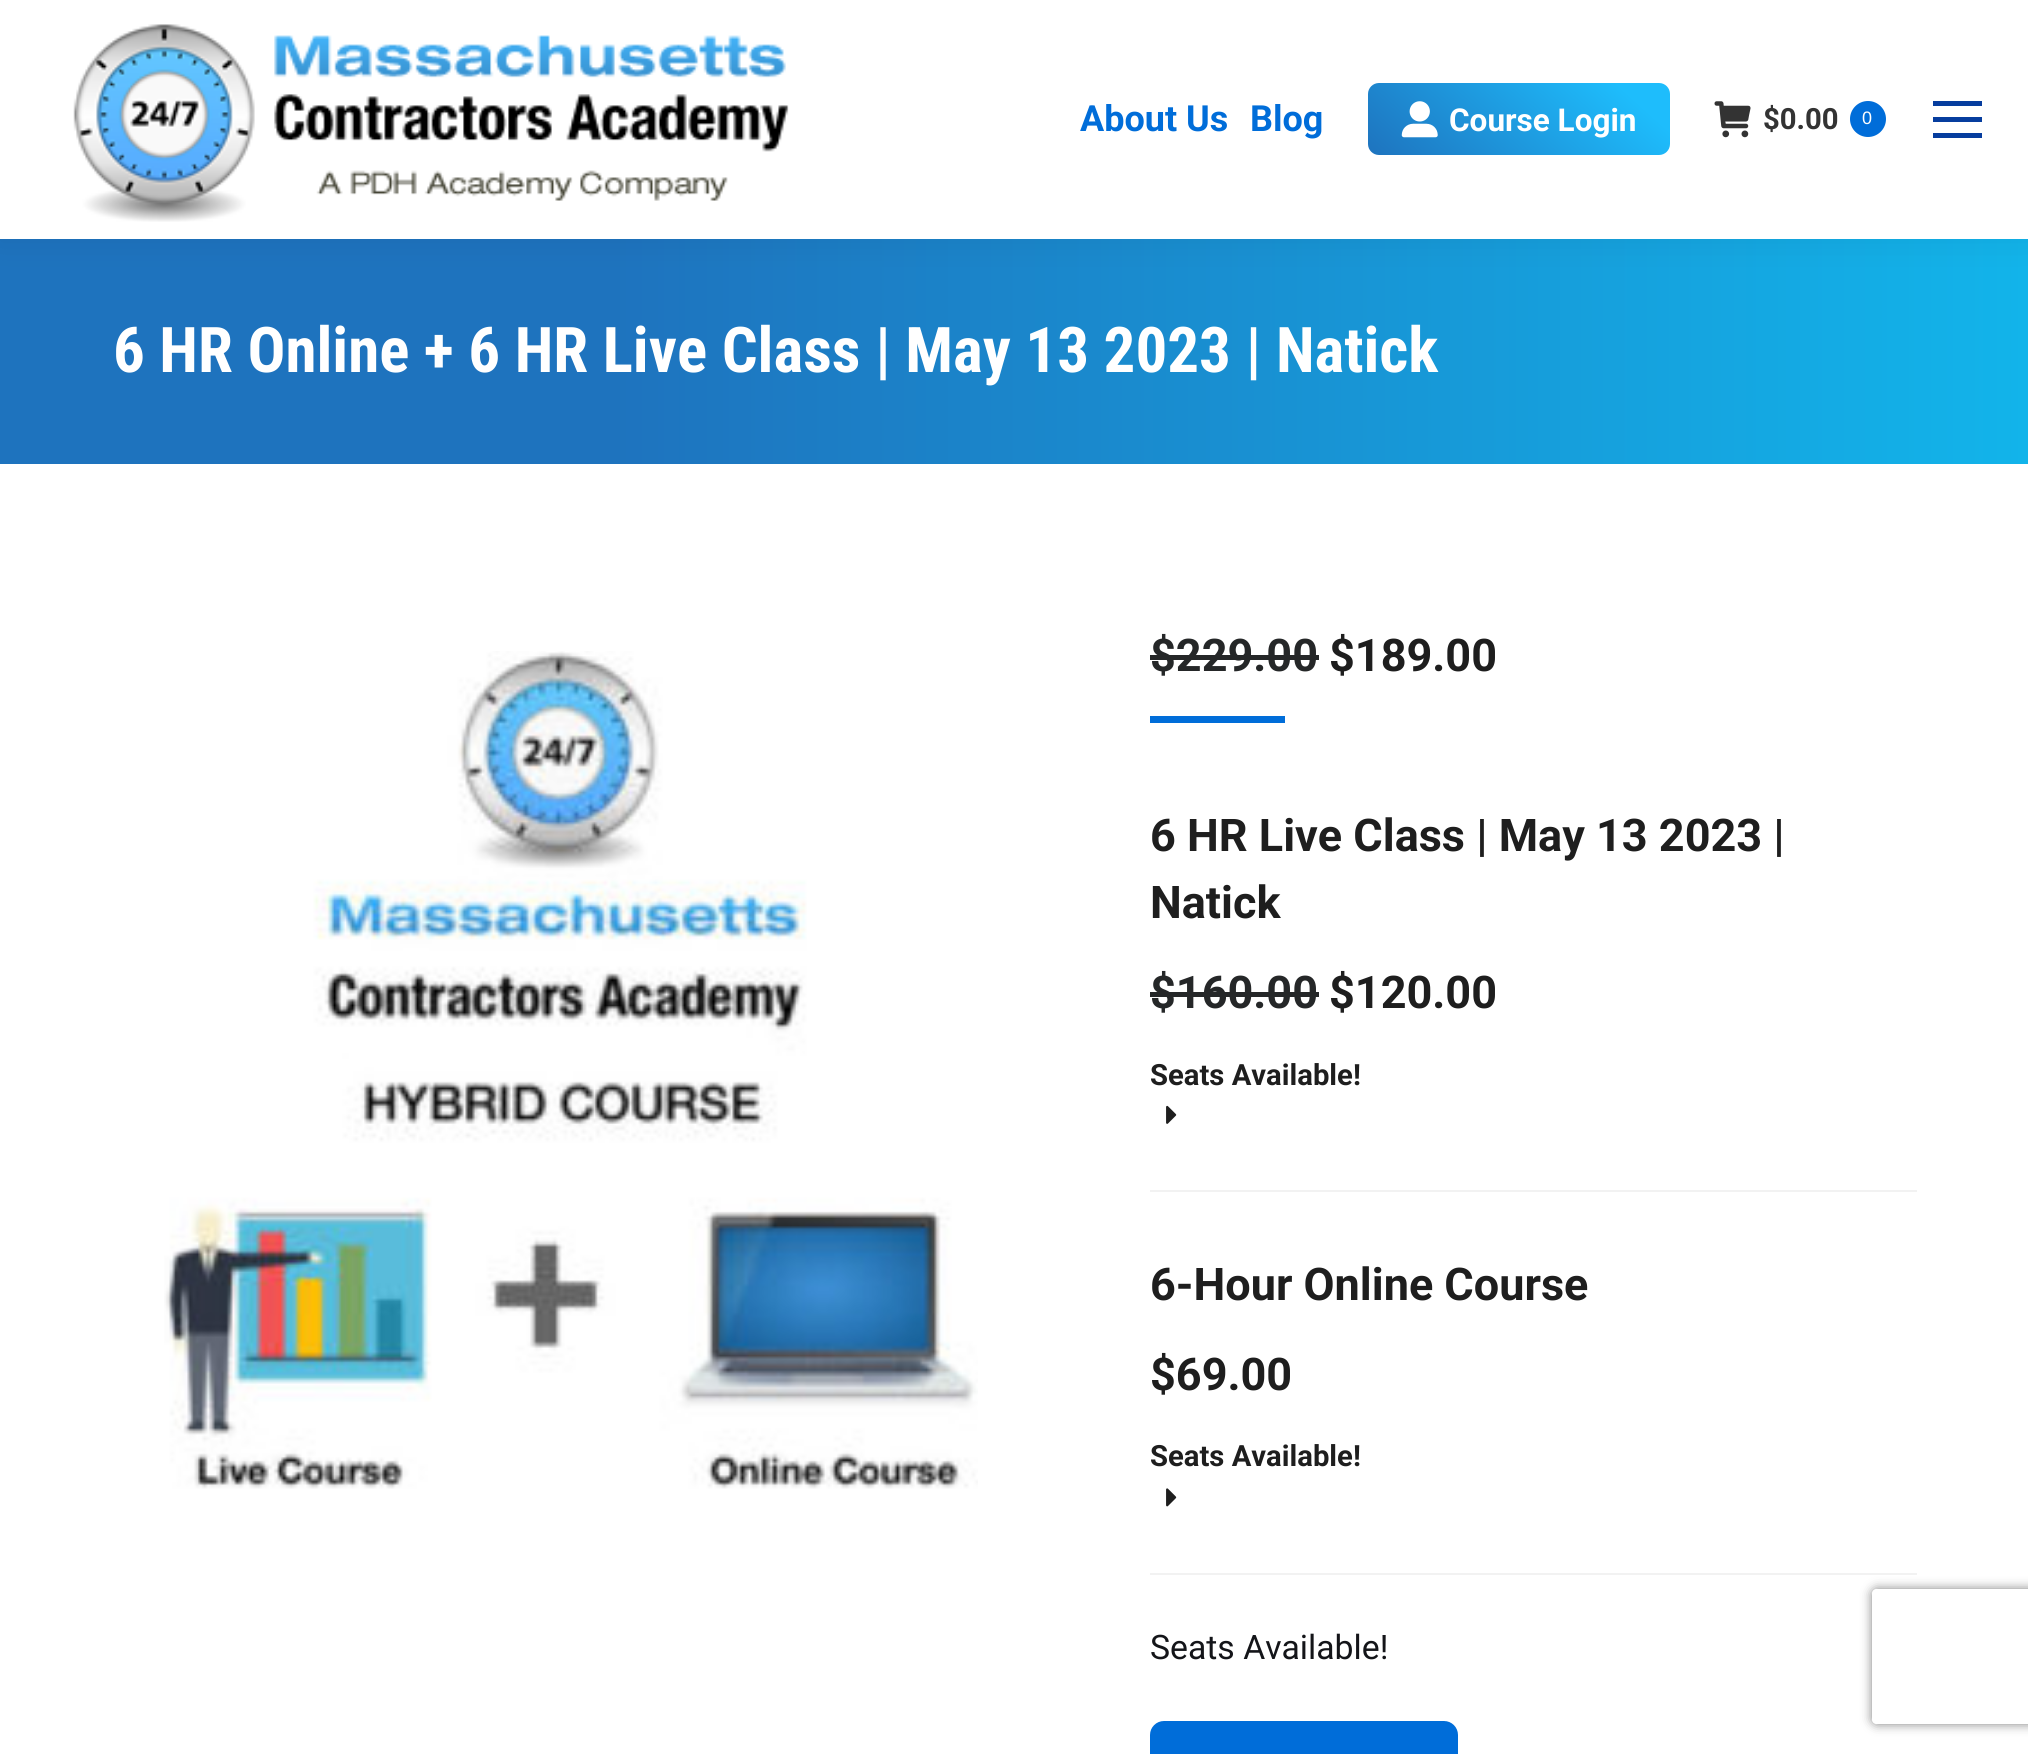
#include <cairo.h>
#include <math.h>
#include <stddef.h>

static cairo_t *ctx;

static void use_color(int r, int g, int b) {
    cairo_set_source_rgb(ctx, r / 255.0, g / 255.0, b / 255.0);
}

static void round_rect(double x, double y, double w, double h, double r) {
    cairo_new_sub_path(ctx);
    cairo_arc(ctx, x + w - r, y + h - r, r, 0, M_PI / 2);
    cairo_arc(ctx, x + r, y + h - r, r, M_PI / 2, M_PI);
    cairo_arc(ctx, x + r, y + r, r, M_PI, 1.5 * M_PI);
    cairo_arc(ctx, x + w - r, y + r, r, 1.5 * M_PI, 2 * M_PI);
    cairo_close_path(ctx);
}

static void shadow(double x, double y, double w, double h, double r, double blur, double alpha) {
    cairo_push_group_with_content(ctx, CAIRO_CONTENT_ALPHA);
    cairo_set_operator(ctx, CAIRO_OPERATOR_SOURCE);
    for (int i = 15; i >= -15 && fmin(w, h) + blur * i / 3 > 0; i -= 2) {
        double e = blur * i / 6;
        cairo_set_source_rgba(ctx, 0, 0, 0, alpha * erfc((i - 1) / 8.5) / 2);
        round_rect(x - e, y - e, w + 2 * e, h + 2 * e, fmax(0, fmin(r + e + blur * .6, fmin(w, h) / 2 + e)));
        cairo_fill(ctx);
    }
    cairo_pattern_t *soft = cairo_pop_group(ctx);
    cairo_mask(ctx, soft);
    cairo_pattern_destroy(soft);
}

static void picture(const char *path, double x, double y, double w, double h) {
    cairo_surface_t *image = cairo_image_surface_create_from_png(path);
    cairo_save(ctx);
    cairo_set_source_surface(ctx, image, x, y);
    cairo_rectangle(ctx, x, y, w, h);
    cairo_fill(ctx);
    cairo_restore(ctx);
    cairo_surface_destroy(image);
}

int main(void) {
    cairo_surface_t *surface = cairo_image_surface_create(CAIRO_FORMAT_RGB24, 2028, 1754);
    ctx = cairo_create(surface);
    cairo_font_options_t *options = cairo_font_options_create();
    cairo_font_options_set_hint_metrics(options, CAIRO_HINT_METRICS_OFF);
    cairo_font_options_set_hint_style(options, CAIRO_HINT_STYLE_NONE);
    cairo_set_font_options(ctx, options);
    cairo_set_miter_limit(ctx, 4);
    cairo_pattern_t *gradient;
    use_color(255, 255, 255);
    cairo_paint(ctx);
    gradient = cairo_pattern_create_linear(0, 351, 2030, 351);
    cairo_pattern_add_color_stop_rgba(gradient, 0.3, 0.118, 0.451, 0.745, 1);
    cairo_pattern_add_color_stop_rgba(gradient, 1, 0.071, 0.706, 0.918, 1);
    cairo_set_source(ctx, gradient);
    cairo_pattern_destroy(gradient);
    cairo_rectangle(ctx, 0, 239, 2028, 225);
    cairo_fill(ctx);
    use_color(0, 0, 0);
    shadow(-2, -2, 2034, 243, 0, 17, 0.07);
    use_color(255, 255, 255);
    cairo_rectangle(ctx, 0, 0, 2028, 239);
    cairo_fill(ctx);
    picture("img1.png", 73, 24, 716, 198);
    cairo_select_font_face(ctx, "Roboto", CAIRO_FONT_SLANT_NORMAL, CAIRO_FONT_WEIGHT_BOLD);
    cairo_set_font_size(ctx, 36);
    use_color(0, 109, 217);
    cairo_move_to(ctx, 1080, 131);
    cairo_show_text(ctx, "About Us");
    cairo_move_to(ctx, 1250, 131);
    cairo_show_text(ctx, "Blog");
    gradient = cairo_pattern_create_linear(1604, 24, 1433, 214);
    cairo_pattern_add_color_stop_rgba(gradient, 0.14, 0.118, 0.741, 0.988, 1);
    cairo_pattern_add_color_stop_rgba(gradient, 1, 0.118, 0.451, 0.745, 1);
    cairo_set_source(ctx, gradient);
    cairo_pattern_destroy(gradient);
    round_rect(1368, 83, 302, 72, 11);
    cairo_fill(ctx);
    picture("img2.png", 1401, 101, 37, 37);
    cairo_set_font_size(ctx, 31.5);
    use_color(255, 255, 255);
    cairo_move_to(ctx, 1449, 131);
    cairo_show_text(ctx, "Course Login");
    picture("img3.png", 1714, 101, 37, 37);
    cairo_set_font_size(ctx, 29.25);
    use_color(51, 51, 51);
    cairo_move_to(ctx, 1763, 129);
    cairo_show_text(ctx, "$0.00");
    use_color(0, 109, 217);
    cairo_new_path(ctx);
    cairo_arc(ctx, 1868, 119, 18, 0, 2 * M_PI);
    cairo_fill(ctx);
    cairo_select_font_face(ctx, "Liberation Sans", CAIRO_FONT_SLANT_NORMAL, CAIRO_FONT_WEIGHT_NORMAL);
    cairo_set_font_size(ctx, 18);
    use_color(255, 255, 255);
    cairo_move_to(ctx, 1862, 124);
    cairo_show_text(ctx, "0");
    use_color(6, 61, 158);
    cairo_rectangle(ctx, 1933, 101, 49, 5);
    cairo_fill(ctx);
    cairo_rectangle(ctx, 1933, 117, 49, 5);
    cairo_fill(ctx);
    cairo_rectangle(ctx, 1933, 133, 49, 5);
    cairo_fill(ctx);
    cairo_select_font_face(ctx, "Roboto Condensed", CAIRO_FONT_SLANT_NORMAL, CAIRO_FONT_WEIGHT_BOLD);
    cairo_set_font_size(ctx, 63);
    use_color(255, 255, 255);
    cairo_move_to(ctx, 113, 372);
    cairo_show_text(ctx, "6 HR Online + 6 HR Live Class | May 13 2023 | Natick");
    picture("img4.png", 164, 651, 814, 838);
    cairo_select_font_face(ctx, "Roboto", CAIRO_FONT_SLANT_NORMAL, CAIRO_FONT_WEIGHT_BOLD);
    cairo_set_font_size(ctx, 45);
    use_color(37, 39, 40);
    cairo_move_to(ctx, 1150, 671);
    cairo_show_text(ctx, "$229.00");
    cairo_rectangle(ctx, 1150, 655, 169, 5);
    cairo_fill(ctx);
    use_color(30, 30, 30);
    cairo_move_to(ctx, 1329, 671);
    cairo_show_text(ctx, "$189.00");
    use_color(0, 109, 217);
    cairo_rectangle(ctx, 1150, 716, 135, 7);
    cairo_fill(ctx);
    use_color(242, 242, 242);
    cairo_rectangle(ctx, 1150, 1190, 767, 2);
    cairo_fill(ctx);
    use_color(30, 30, 30);
    cairo_move_to(ctx, 1150, 851);
    cairo_show_text(ctx, "6 HR Live Class | May 13 2023 |");
    cairo_move_to(ctx, 1150, 918);
    cairo_show_text(ctx, "Natick");
    use_color(37, 39, 40);
    cairo_move_to(ctx, 1150, 1008);
    cairo_show_text(ctx, "$160.00");
    cairo_rectangle(ctx, 1150, 992, 169, 5);
    cairo_fill(ctx);
    use_color(30, 30, 30);
    cairo_move_to(ctx, 1329, 1008);
    cairo_show_text(ctx, "$120.00");
    cairo_set_font_size(ctx, 29.25);
    cairo_move_to(ctx, 1150, 1085);
    cairo_show_text(ctx, "Seats Available!");
    picture("img5.png", 1166, 1105, 11, 19);
    use_color(242, 242, 242);
    cairo_rectangle(ctx, 1150, 1573, 767, 2);
    cairo_fill(ctx);
    cairo_set_font_size(ctx, 45);
    use_color(30, 30, 30);
    cairo_move_to(ctx, 1150, 1300);
    cairo_show_text(ctx, "6-Hour Online Course");
    cairo_move_to(ctx, 1150, 1390);
    cairo_show_text(ctx, "$69.00");
    cairo_set_font_size(ctx, 29.25);
    cairo_move_to(ctx, 1150, 1466);
    cairo_show_text(ctx, "Seats Available!");
    picture("img6.png", 1166, 1488, 11, 19);
    cairo_select_font_face(ctx, "Roboto", CAIRO_FONT_SLANT_NORMAL, CAIRO_FONT_WEIGHT_NORMAL);
    cairo_set_font_size(ctx, 33.75);
    use_color(20, 21, 25);
    cairo_move_to(ctx, 1150, 1659);
    cairo_show_text(ctx, "Seats Available!");
    use_color(0, 109, 217);
    round_rect(1150, 1721, 308, 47, 14);
    cairo_fill(ctx);
    cairo_save(ctx);
    cairo_set_fill_rule(ctx, CAIRO_FILL_RULE_EVEN_ODD);
    cairo_new_path(ctx);
    cairo_move_to(ctx, 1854, 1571);
    cairo_line_to(ctx, 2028, 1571);
    cairo_line_to(ctx, 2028, 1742);
    cairo_line_to(ctx, 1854, 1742);
    cairo_close_path(ctx);
    cairo_move_to(ctx, 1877, 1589);
    cairo_line_to(ctx, 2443, 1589);
    cairo_curve_to(ctx, 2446, 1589, 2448, 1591, 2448, 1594);
    cairo_line_to(ctx, 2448, 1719);
    cairo_curve_to(ctx, 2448, 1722, 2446, 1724, 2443, 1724);
    cairo_line_to(ctx, 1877, 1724);
    cairo_curve_to(ctx, 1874, 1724, 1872, 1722, 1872, 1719);
    cairo_line_to(ctx, 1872, 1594);
    cairo_curve_to(ctx, 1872, 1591, 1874, 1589, 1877, 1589);
    cairo_close_path(ctx);
    cairo_clip(ctx);
    use_color(128, 128, 128);
    shadow(1872, 1589, 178, 135, 5, 5.5, 1);
    cairo_restore(ctx);
    cairo_surface_write_to_png(surface, "result.png");
    cairo_font_options_destroy(options);
    cairo_destroy(ctx);
    cairo_surface_destroy(surface);
    return 0;
}
